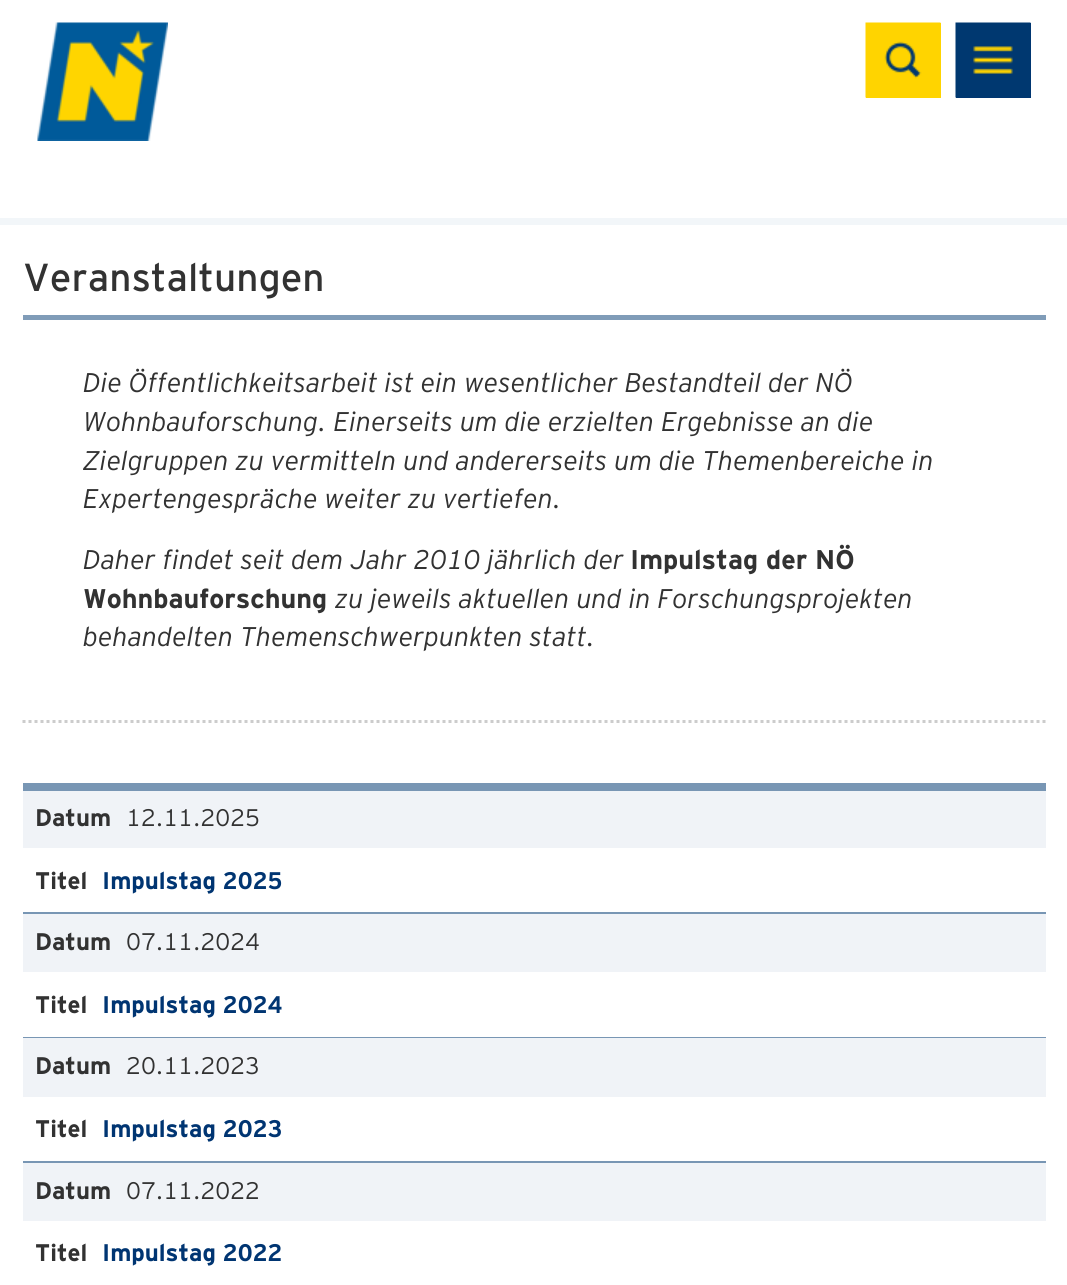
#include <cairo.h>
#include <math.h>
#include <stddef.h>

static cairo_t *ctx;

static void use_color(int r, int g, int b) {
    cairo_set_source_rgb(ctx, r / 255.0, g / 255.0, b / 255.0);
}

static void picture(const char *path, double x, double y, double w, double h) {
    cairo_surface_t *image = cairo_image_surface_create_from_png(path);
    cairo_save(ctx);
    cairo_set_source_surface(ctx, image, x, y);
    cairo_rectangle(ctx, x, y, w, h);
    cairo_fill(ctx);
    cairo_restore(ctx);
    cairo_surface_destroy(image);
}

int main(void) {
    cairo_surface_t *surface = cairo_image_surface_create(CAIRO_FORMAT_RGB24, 1067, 1285);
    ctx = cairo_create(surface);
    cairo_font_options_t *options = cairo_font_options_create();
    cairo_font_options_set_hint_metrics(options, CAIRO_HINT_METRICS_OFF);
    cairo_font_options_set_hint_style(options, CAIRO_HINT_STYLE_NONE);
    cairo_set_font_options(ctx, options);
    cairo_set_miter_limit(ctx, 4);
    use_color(255, 255, 255);
    cairo_paint(ctx);
    use_color(242, 246, 249);
    cairo_rectangle(ctx, 0, 218, 1067, 7);
    cairo_fill(ctx);
    picture("img1.png", 37, 22, 131, 119);
    use_color(255, 213, 0);
    cairo_rectangle(ctx, 866, 23, 75, 75);
    cairo_fill(ctx);
    picture("img2.png", 865, 22, 76, 76);
    use_color(0, 53, 114);
    cairo_rectangle(ctx, 956, 23, 75, 75);
    cairo_fill(ctx);
    picture("img3.png", 955, 22, 76, 76);
    use_color(128, 156, 184);
    cairo_rectangle(ctx, 23, 315, 1023, 5);
    cairo_fill(ctx);
    cairo_select_font_face(ctx, "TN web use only", CAIRO_FONT_SLANT_NORMAL, CAIRO_FONT_WEIGHT_NORMAL);
    cairo_set_font_size(ctx, 39);
    use_color(50, 50, 50);
    cairo_move_to(ctx, 23, 291);
    cairo_show_text(ctx, "Veranstaltungen");
    cairo_new_path(ctx);
    cairo_move_to(ctx, 22.5, 721.5);
    cairo_line_to(ctx, 1045.5, 721.5);
    use_color(204, 204, 204);
    cairo_set_line_width(ctx, 3);
    cairo_set_dash(ctx, (double[]){3, 3}, 2, 0);
    cairo_stroke(ctx);
    cairo_select_font_face(ctx, "TN web use only Light", CAIRO_FONT_SLANT_ITALIC, CAIRO_FONT_WEIGHT_NORMAL);
    cairo_set_font_size(ctx, 27);
    use_color(50, 50, 50);
    cairo_move_to(ctx, 83, 392);
    cairo_show_text(ctx, "Die Öffentlichkeitsarbeit ist ein wesentlicher Bestandteil der NÖ");
    cairo_move_to(ctx, 83, 431);
    cairo_show_text(ctx, "Wohnbauforschung. Einerseits um die erzielten Ergebnisse an die");
    cairo_move_to(ctx, 83, 470);
    cairo_show_text(ctx, "Zielgruppen zu vermitteln und andererseits um die Themenbereiche in");
    cairo_move_to(ctx, 83, 508);
    cairo_show_text(ctx, "Expertengespräche weiter zu vertiefen.");
    cairo_move_to(ctx, 83, 569);
    cairo_show_text(ctx, "Daher findet seit dem Jahr 2010 jährlich der");
    cairo_select_font_face(ctx, "TN web use only", CAIRO_FONT_SLANT_NORMAL, CAIRO_FONT_WEIGHT_BOLD);
    cairo_move_to(ctx, 630, 569);
    cairo_show_text(ctx, "Impulstag der NÖ");
    cairo_move_to(ctx, 83, 608);
    cairo_show_text(ctx, "Wohnbauforschung");
    cairo_select_font_face(ctx, "TN web use only Light", CAIRO_FONT_SLANT_ITALIC, CAIRO_FONT_WEIGHT_NORMAL);
    cairo_move_to(ctx, 335, 608);
    cairo_show_text(ctx, "zu jeweils aktuellen und in Forschungsprojekten");
    cairo_move_to(ctx, 83, 646);
    cairo_show_text(ctx, "behandelten Themenschwerpunkten statt.");
    use_color(120, 150, 180);
    cairo_rectangle(ctx, 23, 783, 1023, 8);
    cairo_fill(ctx);
    cairo_rectangle(ctx, 23, 912, 1023, 2);
    cairo_fill(ctx);
    use_color(240, 243, 247);
    cairo_rectangle(ctx, 23, 791, 1023, 57);
    cairo_fill(ctx);
    cairo_select_font_face(ctx, "TN web use only", CAIRO_FONT_SLANT_NORMAL, CAIRO_FONT_WEIGHT_BOLD);
    cairo_set_font_size(ctx, 24);
    use_color(50, 50, 50);
    cairo_move_to(ctx, 35, 826);
    cairo_show_text(ctx, "Datum");
    cairo_select_font_face(ctx, "TN web use only Light", CAIRO_FONT_SLANT_NORMAL, CAIRO_FONT_WEIGHT_NORMAL);
    cairo_move_to(ctx, 126, 826);
    cairo_show_text(ctx, "12.11.2025");
    cairo_select_font_face(ctx, "TN web use only", CAIRO_FONT_SLANT_NORMAL, CAIRO_FONT_WEIGHT_BOLD);
    cairo_move_to(ctx, 35, 889);
    cairo_show_text(ctx, "Titel");
    use_color(0, 53, 114);
    cairo_move_to(ctx, 102, 889);
    cairo_show_text(ctx, "Impulstag 2025");
    use_color(240, 243, 247);
    cairo_rectangle(ctx, 23, 914, 1023, 58);
    cairo_fill(ctx);
    use_color(120, 150, 180);
    cairo_rectangle(ctx, 23, 1037, 1023, 1);
    cairo_fill(ctx);
    use_color(50, 50, 50);
    cairo_move_to(ctx, 35, 950);
    cairo_show_text(ctx, "Datum");
    cairo_select_font_face(ctx, "TN web use only Light", CAIRO_FONT_SLANT_NORMAL, CAIRO_FONT_WEIGHT_NORMAL);
    cairo_move_to(ctx, 126, 950);
    cairo_show_text(ctx, "07.11.2024");
    cairo_select_font_face(ctx, "TN web use only", CAIRO_FONT_SLANT_NORMAL, CAIRO_FONT_WEIGHT_BOLD);
    cairo_move_to(ctx, 35, 1013);
    cairo_show_text(ctx, "Titel");
    use_color(0, 53, 114);
    cairo_move_to(ctx, 102, 1013);
    cairo_show_text(ctx, "Impulstag 2024");
    use_color(120, 150, 180);
    cairo_rectangle(ctx, 23, 1161, 1023, 2);
    cairo_fill(ctx);
    use_color(240, 243, 247);
    cairo_rectangle(ctx, 23, 1038, 1023, 59);
    cairo_fill(ctx);
    use_color(50, 50, 50);
    cairo_move_to(ctx, 35, 1074);
    cairo_show_text(ctx, "Datum");
    cairo_select_font_face(ctx, "TN web use only Light", CAIRO_FONT_SLANT_NORMAL, CAIRO_FONT_WEIGHT_NORMAL);
    cairo_move_to(ctx, 126, 1074);
    cairo_show_text(ctx, "20.11.2023");
    cairo_select_font_face(ctx, "TN web use only", CAIRO_FONT_SLANT_NORMAL, CAIRO_FONT_WEIGHT_BOLD);
    cairo_move_to(ctx, 35, 1137);
    cairo_show_text(ctx, "Titel");
    use_color(0, 53, 114);
    cairo_move_to(ctx, 102, 1137);
    cairo_show_text(ctx, "Impulstag 2023");
    use_color(240, 243, 247);
    cairo_rectangle(ctx, 23, 1163, 1023, 58);
    cairo_fill(ctx);
    use_color(50, 50, 50);
    cairo_move_to(ctx, 35, 1199);
    cairo_show_text(ctx, "Datum");
    cairo_select_font_face(ctx, "TN web use only Light", CAIRO_FONT_SLANT_NORMAL, CAIRO_FONT_WEIGHT_NORMAL);
    cairo_move_to(ctx, 126, 1199);
    cairo_show_text(ctx, "07.11.2022");
    cairo_select_font_face(ctx, "TN web use only", CAIRO_FONT_SLANT_NORMAL, CAIRO_FONT_WEIGHT_BOLD);
    cairo_move_to(ctx, 35, 1261);
    cairo_show_text(ctx, "Titel");
    use_color(0, 53, 114);
    cairo_move_to(ctx, 102, 1261);
    cairo_show_text(ctx, "Impulstag 2022");
    cairo_surface_write_to_png(surface, "result.png");
    cairo_font_options_destroy(options);
    cairo_destroy(ctx);
    cairo_surface_destroy(surface);
    return 0;
}
